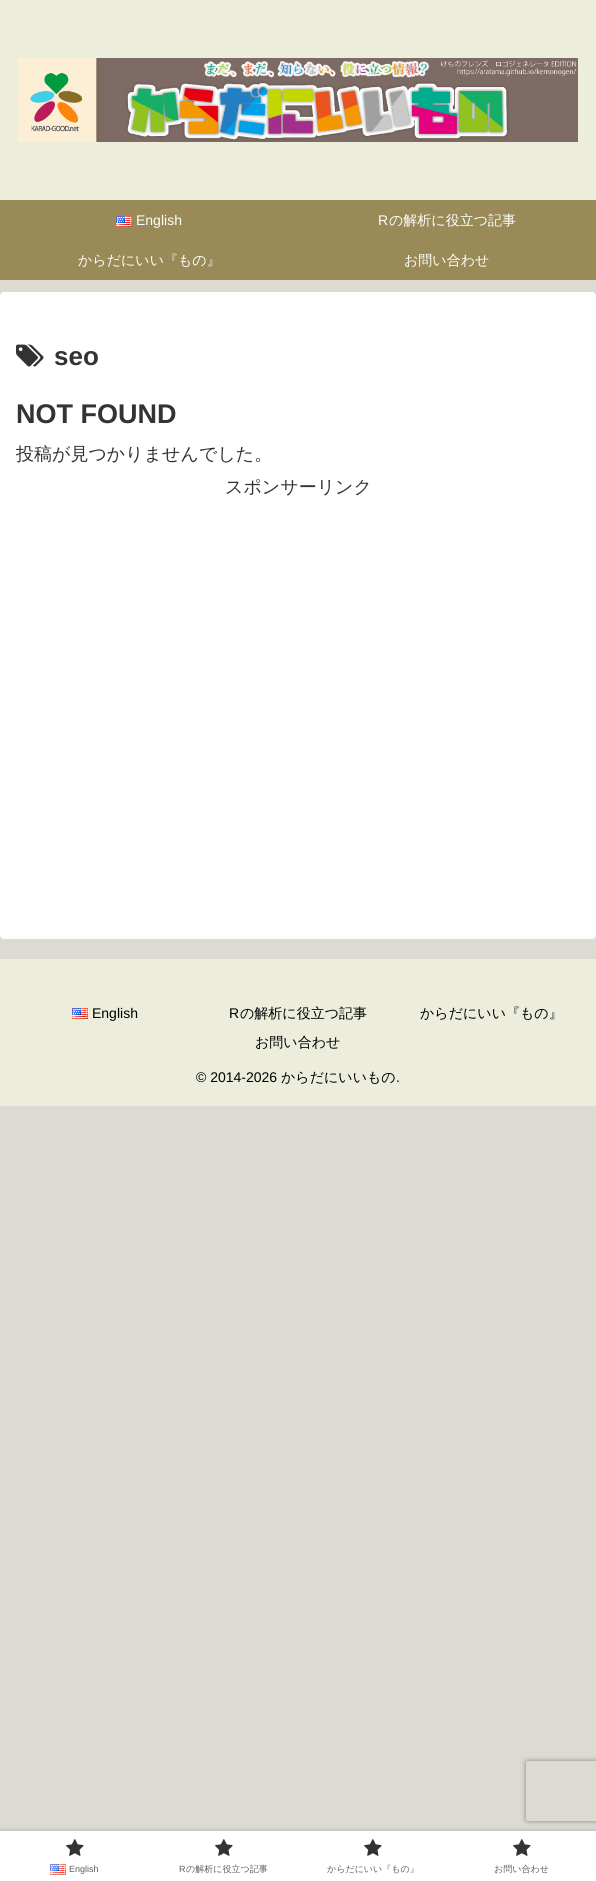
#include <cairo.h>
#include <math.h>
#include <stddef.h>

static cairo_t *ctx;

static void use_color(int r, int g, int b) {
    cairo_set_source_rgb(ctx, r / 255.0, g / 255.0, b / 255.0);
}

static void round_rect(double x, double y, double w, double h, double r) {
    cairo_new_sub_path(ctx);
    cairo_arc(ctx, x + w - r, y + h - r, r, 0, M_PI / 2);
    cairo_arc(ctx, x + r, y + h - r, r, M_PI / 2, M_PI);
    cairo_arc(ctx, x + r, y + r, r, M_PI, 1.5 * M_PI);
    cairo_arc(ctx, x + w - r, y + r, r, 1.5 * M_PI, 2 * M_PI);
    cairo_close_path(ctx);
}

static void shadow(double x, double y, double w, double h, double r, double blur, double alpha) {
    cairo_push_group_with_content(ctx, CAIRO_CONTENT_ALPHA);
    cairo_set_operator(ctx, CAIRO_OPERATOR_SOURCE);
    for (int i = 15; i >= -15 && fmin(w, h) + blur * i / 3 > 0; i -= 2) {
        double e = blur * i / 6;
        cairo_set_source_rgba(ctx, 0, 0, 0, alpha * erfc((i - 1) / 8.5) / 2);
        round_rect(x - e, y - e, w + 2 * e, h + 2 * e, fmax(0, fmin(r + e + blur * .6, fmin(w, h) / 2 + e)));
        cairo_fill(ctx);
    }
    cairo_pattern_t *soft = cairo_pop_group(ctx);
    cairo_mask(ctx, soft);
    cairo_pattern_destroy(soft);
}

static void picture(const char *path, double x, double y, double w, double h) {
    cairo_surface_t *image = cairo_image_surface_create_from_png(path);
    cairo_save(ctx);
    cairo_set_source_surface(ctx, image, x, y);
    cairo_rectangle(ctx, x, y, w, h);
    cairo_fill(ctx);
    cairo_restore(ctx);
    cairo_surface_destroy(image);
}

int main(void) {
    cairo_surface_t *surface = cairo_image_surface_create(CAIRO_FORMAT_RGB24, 596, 1881);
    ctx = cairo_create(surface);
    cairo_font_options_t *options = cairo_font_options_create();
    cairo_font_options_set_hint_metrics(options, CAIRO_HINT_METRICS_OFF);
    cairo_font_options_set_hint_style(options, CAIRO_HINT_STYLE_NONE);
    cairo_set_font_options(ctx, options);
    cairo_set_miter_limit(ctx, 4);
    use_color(221, 218, 211);
    cairo_paint(ctx);
    use_color(236, 237, 219);
    cairo_rectangle(ctx, 0, 0, 596, 200);
    cairo_fill(ctx);
    picture("img1.png", 18, 58, 560, 84);
    use_color(153, 138, 87);
    cairo_rectangle(ctx, 0, 200, 596, 80);
    cairo_fill(ctx);
    picture("img2.png", 116, 216, 16, 11);
    cairo_select_font_face(ctx, "Liberation Sans", CAIRO_FONT_SLANT_NORMAL, CAIRO_FONT_WEIGHT_NORMAL);
    cairo_set_font_size(ctx, 14);
    use_color(255, 255, 255);
    cairo_move_to(ctx, 136, 225);
    cairo_show_text(ctx, "English");
    cairo_move_to(ctx, 378, 225);
    cairo_show_text(ctx, "R");
    cairo_select_font_face(ctx, "WenQuanYi Zen Hei Medium", CAIRO_FONT_SLANT_NORMAL, CAIRO_FONT_WEIGHT_NORMAL);
    cairo_move_to(ctx, 389, 225);
    cairo_show_text(ctx, "の解析に役立つ記事");
    cairo_move_to(ctx, 78, 265);
    cairo_show_text(ctx, "からだにいい『もの』");
    cairo_move_to(ctx, 404, 265);
    cairo_show_text(ctx, "お問い合わせ");
    round_rect(0, 292, 596, 647, 4);
    cairo_fill(ctx);
    picture("img3.png", 16, 344, 28, 23);
    cairo_select_font_face(ctx, "Liberation Sans", CAIRO_FONT_SLANT_NORMAL, CAIRO_FONT_WEIGHT_BOLD);
    cairo_set_font_size(ctx, 26);
    use_color(51, 51, 51);
    cairo_move_to(ctx, 54, 365);
    cairo_show_text(ctx, "seo");
    cairo_set_font_size(ctx, 27);
    cairo_move_to(ctx, 16, 423);
    cairo_show_text(ctx, "NOT FOUND");
    cairo_select_font_face(ctx, "WenQuanYi Zen Hei Medium", CAIRO_FONT_SLANT_NORMAL, CAIRO_FONT_WEIGHT_NORMAL);
    cairo_set_font_size(ctx, 18);
    cairo_move_to(ctx, 16, 460);
    cairo_show_text(ctx, "投稿が見つかりませんでした。");
    cairo_move_to(ctx, 225, 493);
    cairo_show_text(ctx, "スポンサーリンク");
    use_color(236, 237, 219);
    cairo_rectangle(ctx, 0, 959, 596, 147);
    cairo_fill(ctx);
    picture("img2.png", 72, 1008, 16, 11);
    cairo_select_font_face(ctx, "Liberation Sans", CAIRO_FONT_SLANT_NORMAL, CAIRO_FONT_WEIGHT_NORMAL);
    cairo_set_font_size(ctx, 14);
    use_color(0, 0, 0);
    cairo_move_to(ctx, 92, 1018);
    cairo_show_text(ctx, "English");
    cairo_move_to(ctx, 229, 1018);
    cairo_show_text(ctx, "R");
    cairo_select_font_face(ctx, "WenQuanYi Zen Hei Medium", CAIRO_FONT_SLANT_NORMAL, CAIRO_FONT_WEIGHT_NORMAL);
    cairo_move_to(ctx, 240, 1018);
    cairo_show_text(ctx, "の解析に役立つ記事");
    cairo_move_to(ctx, 420, 1018);
    cairo_show_text(ctx, "からだにいい『もの』");
    cairo_move_to(ctx, 255, 1047);
    cairo_show_text(ctx, "お問い合わせ");
    cairo_select_font_face(ctx, "Liberation Sans", CAIRO_FONT_SLANT_NORMAL, CAIRO_FONT_WEIGHT_NORMAL);
    cairo_move_to(ctx, 196, 1082);
    cairo_show_text(ctx, "© 2014-2026");
    cairo_select_font_face(ctx, "WenQuanYi Zen Hei Medium", CAIRO_FONT_SLANT_NORMAL, CAIRO_FONT_WEIGHT_NORMAL);
    cairo_move_to(ctx, 281, 1082);
    cairo_show_text(ctx, "からだにいいもの");
    cairo_select_font_face(ctx, "Liberation Sans", CAIRO_FONT_SLANT_NORMAL, CAIRO_FONT_WEIGHT_NORMAL);
    cairo_move_to(ctx, 396, 1082);
    cairo_show_text(ctx, ".");
    use_color(169, 169, 169);
    shadow(0, 1831, 596, 50, 0, 2.5, 1);
    use_color(255, 255, 255);
    cairo_rectangle(ctx, 0, 1831, 596, 50);
    cairo_fill(ctx);
    picture("img4.png", 66, 1839, 18, 17);
    picture("img5.png", 50, 1864, 16, 11);
    cairo_set_font_size(ctx, 9);
    use_color(92, 92, 92);
    cairo_move_to(ctx, 69, 1872);
    cairo_show_text(ctx, "English");
    picture("img4.png", 215, 1839, 18, 17);
    cairo_move_to(ctx, 179, 1872);
    cairo_show_text(ctx, "R");
    cairo_select_font_face(ctx, "WenQuanYi Zen Hei Medium", CAIRO_FONT_SLANT_NORMAL, CAIRO_FONT_WEIGHT_NORMAL);
    cairo_move_to(ctx, 186, 1872);
    cairo_show_text(ctx, "の解析に役立つ記事");
    picture("img4.png", 364, 1839, 18, 17);
    cairo_move_to(ctx, 327, 1872);
    cairo_show_text(ctx, "からだにいい『もの』");
    picture("img4.png", 513, 1839, 18, 17);
    cairo_move_to(ctx, 494, 1872);
    cairo_show_text(ctx, "お問い合わせ");
    cairo_save(ctx);
    cairo_set_fill_rule(ctx, CAIRO_FILL_RULE_EVEN_ODD);
    cairo_new_path(ctx);
    cairo_move_to(ctx, 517, 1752);
    cairo_line_to(ctx, 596, 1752);
    cairo_line_to(ctx, 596, 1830);
    cairo_line_to(ctx, 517, 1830);
    cairo_close_path(ctx);
    cairo_move_to(ctx, 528, 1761);
    cairo_line_to(ctx, 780, 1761);
    cairo_curve_to(ctx, 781, 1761, 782, 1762, 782, 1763);
    cairo_line_to(ctx, 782, 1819);
    cairo_curve_to(ctx, 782, 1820, 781, 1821, 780, 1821);
    cairo_line_to(ctx, 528, 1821);
    cairo_curve_to(ctx, 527, 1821, 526, 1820, 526, 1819);
    cairo_line_to(ctx, 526, 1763);
    cairo_curve_to(ctx, 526, 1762, 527, 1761, 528, 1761);
    cairo_close_path(ctx);
    cairo_clip(ctx);
    use_color(128, 128, 128);
    shadow(526, 1761, 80, 60, 2, 2.5, 1);
    cairo_restore(ctx);
    cairo_surface_write_to_png(surface, "result.png");
    cairo_font_options_destroy(options);
    cairo_destroy(ctx);
    cairo_surface_destroy(surface);
    return 0;
}
